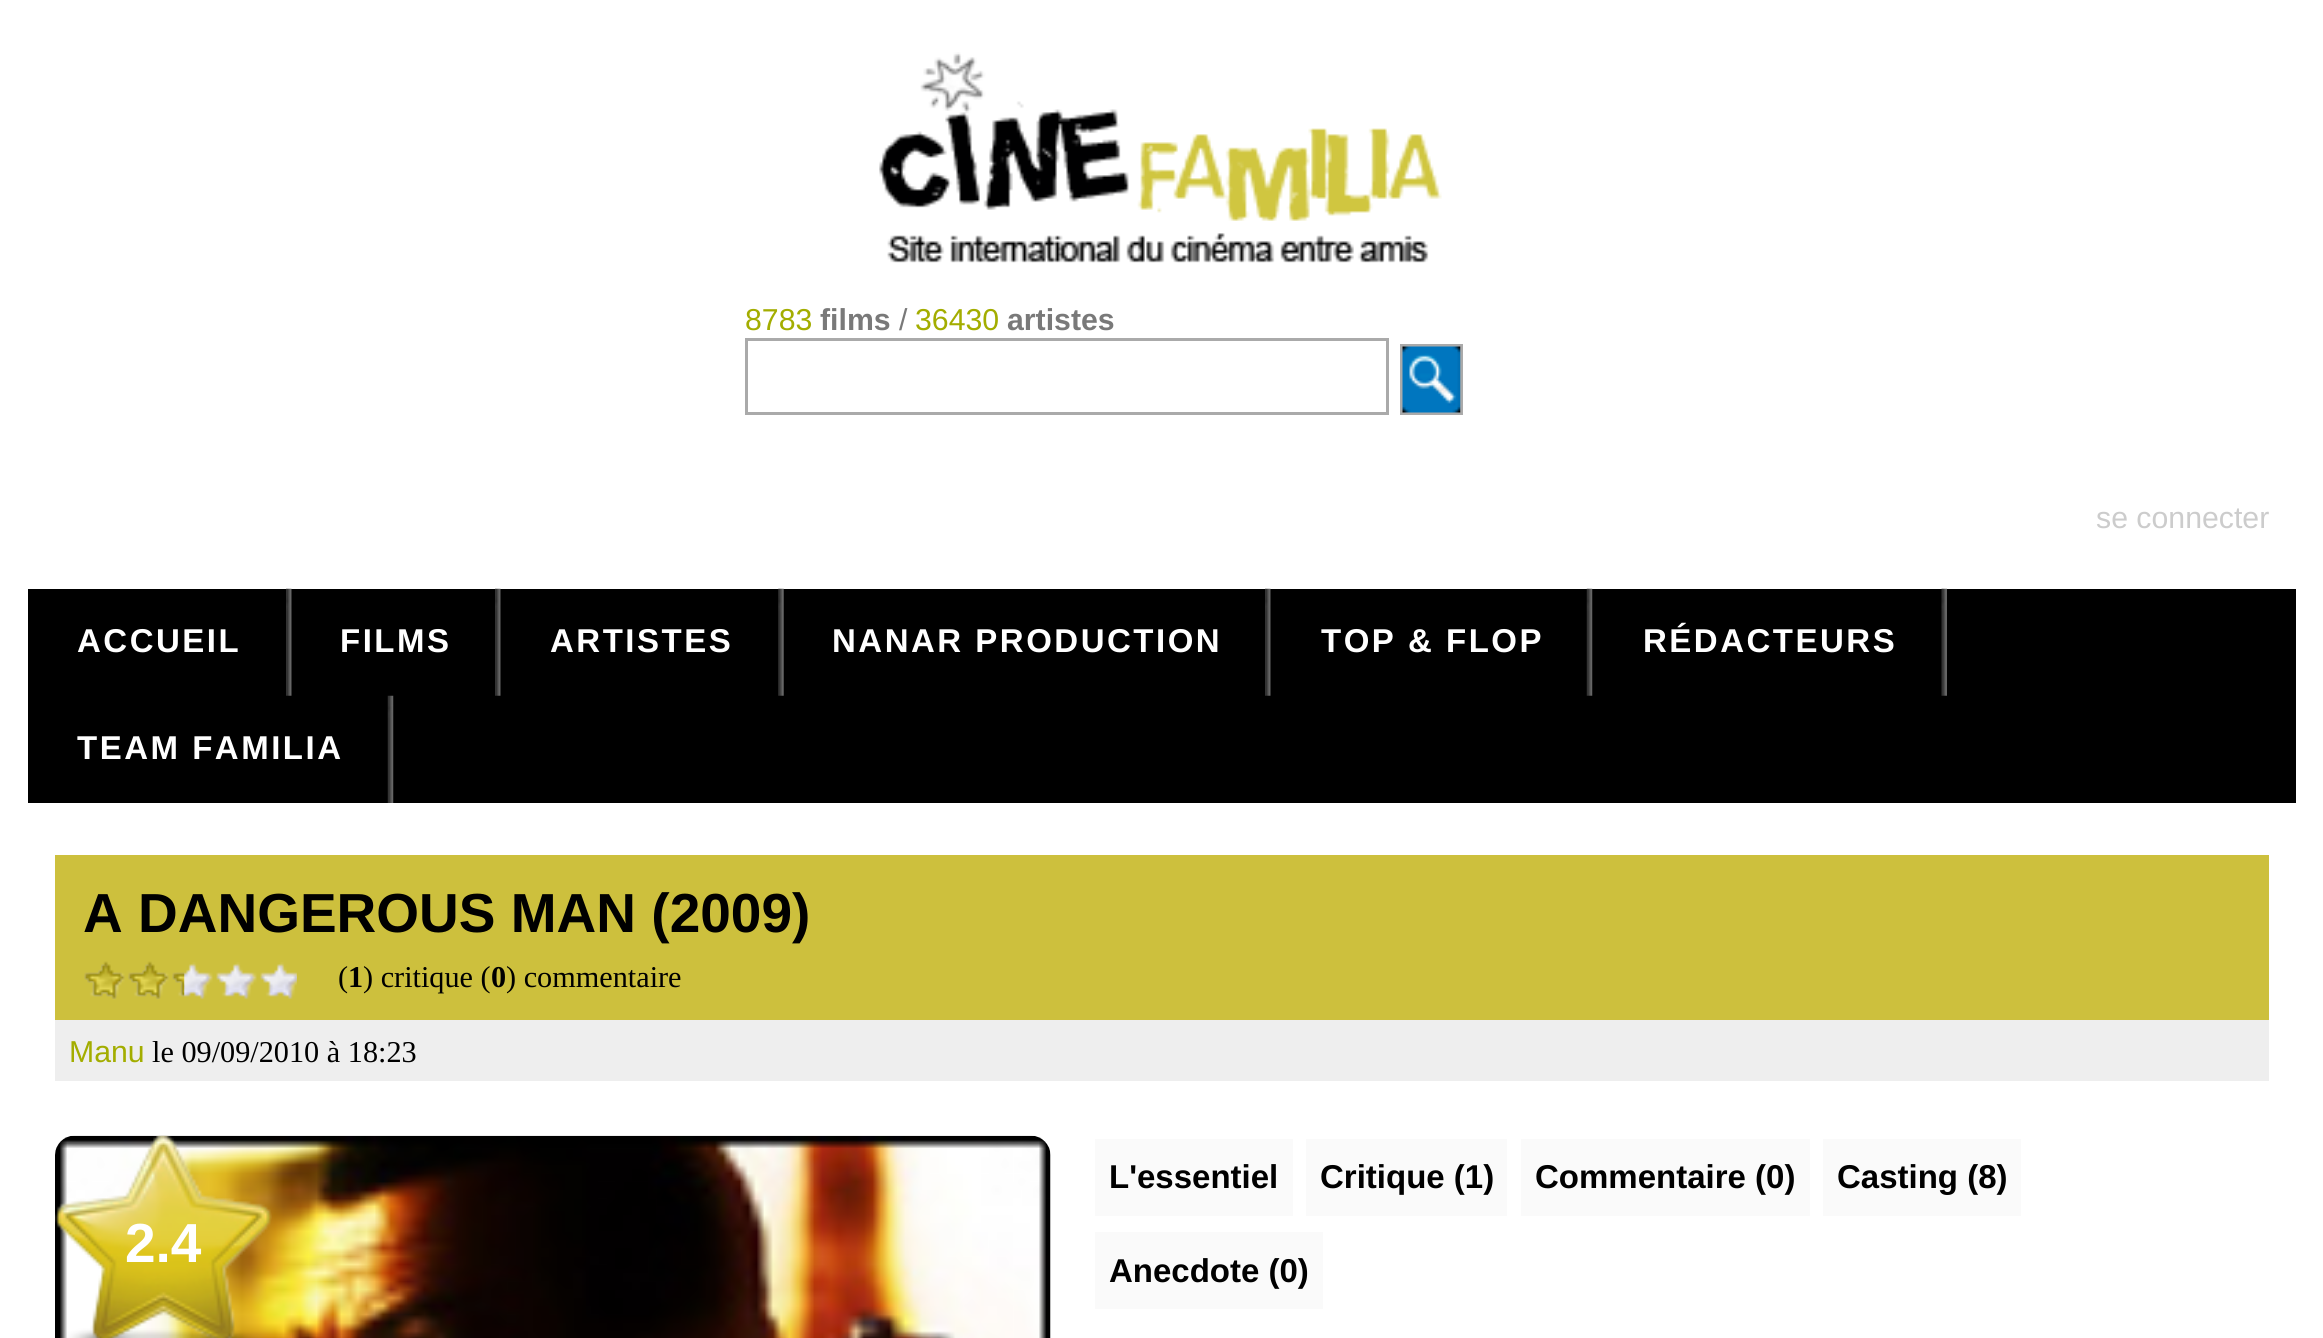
#include <cairo.h>
#include <math.h>
#include <stddef.h>

static cairo_t *ctx;

static void use_color(int r, int g, int b) {
    cairo_set_source_rgb(ctx, r / 255.0, g / 255.0, b / 255.0);
}

static void spaced_text(double x, double y, const char *s, double letter, double word) {
    cairo_move_to(ctx, x, y);
    while (*s) {
        char ch[5] = {0};
        int n = 0;
        do ch[n++] = *s++; while ((*s & 0xC0) == 0x80);
        cairo_show_text(ctx, ch);
        cairo_rel_move_to(ctx, letter + word * (*ch == ' '), 0);
    }
}

static void picture(const char *path, double x, double y, double w, double h) {
    cairo_surface_t *image = cairo_image_surface_create_from_png(path);
    cairo_save(ctx);
    cairo_set_source_surface(ctx, image, x, y);
    cairo_rectangle(ctx, x, y, w, h);
    cairo_fill(ctx);
    cairo_restore(ctx);
    cairo_surface_destroy(image);
}

int main(void) {
    cairo_surface_t *surface = cairo_image_surface_create(CAIRO_FORMAT_RGB24, 2323, 1338);
    ctx = cairo_create(surface);
    cairo_font_options_t *options = cairo_font_options_create();
    cairo_font_options_set_hint_metrics(options, CAIRO_HINT_METRICS_OFF);
    cairo_font_options_set_hint_style(options, CAIRO_HINT_STYLE_NONE);
    cairo_set_font_options(ctx, options);
    cairo_set_miter_limit(ctx, 4);
    use_color(255, 255, 255);
    cairo_paint(ctx);
    picture("img1.png", 879, 52, 563, 211);
    cairo_select_font_face(ctx, "Liberation Sans", CAIRO_FONT_SLANT_NORMAL, CAIRO_FONT_WEIGHT_NORMAL);
    cairo_set_font_size(ctx, 30.25);
    use_color(163, 173, 0);
    cairo_move_to(ctx, 745, 330);
    cairo_show_text(ctx, "8783");
    cairo_select_font_face(ctx, "Liberation Sans", CAIRO_FONT_SLANT_NORMAL, CAIRO_FONT_WEIGHT_BOLD);
    use_color(121, 121, 121);
    cairo_move_to(ctx, 820, 330);
    cairo_show_text(ctx, "films");
    cairo_select_font_face(ctx, "Liberation Sans", CAIRO_FONT_SLANT_NORMAL, CAIRO_FONT_WEIGHT_NORMAL);
    cairo_move_to(ctx, 899, 330);
    cairo_show_text(ctx, "/");
    use_color(163, 173, 0);
    cairo_move_to(ctx, 915, 330);
    cairo_show_text(ctx, "36430");
    cairo_select_font_face(ctx, "Liberation Sans", CAIRO_FONT_SLANT_NORMAL, CAIRO_FONT_WEIGHT_BOLD);
    use_color(121, 121, 121);
    cairo_move_to(ctx, 1007, 330);
    cairo_show_text(ctx, "artistes");
    cairo_rectangle(ctx, 746.5, 339.5, 641, 74);
    use_color(170, 170, 170);
    cairo_set_line_width(ctx, 3);
    cairo_stroke(ctx);
    cairo_rectangle(ctx, 1401.5, 345.5, 60, 68);
    cairo_stroke(ctx);
    picture("img2.png", 1402, 346, 59, 67);
    cairo_select_font_face(ctx, "Liberation Sans", CAIRO_FONT_SLANT_NORMAL, CAIRO_FONT_WEIGHT_NORMAL);
    use_color(204, 204, 204);
    cairo_move_to(ctx, 2096, 528);
    cairo_show_text(ctx, "se connecter");
    use_color(0, 0, 0);
    cairo_rectangle(ctx, 28, 589, 2268, 214);
    cairo_fill(ctx);
    picture("img3.png", 286, 588, 6, 108);
    cairo_select_font_face(ctx, "Liberation Sans", CAIRO_FONT_SLANT_NORMAL, CAIRO_FONT_WEIGHT_BOLD);
    cairo_set_font_size(ctx, 33);
    use_color(255, 255, 255);
    spaced_text(77, 652, "ACCUEIL", 2.5, 0);
    picture("img3.png", 495, 588, 6, 108);
    spaced_text(340, 652, "FILMS", 2.5, 0);
    picture("img4.png", 778, 588, 6, 108);
    spaced_text(550, 652, "ARTISTES", 2.5, 0);
    picture("img3.png", 1265, 588, 6, 108);
    spaced_text(832, 652, "NANAR PRODUCTION", 2.5, 0);
    picture("img5.png", 1586, 588, 7, 108);
    spaced_text(1321, 652, "TOP & FLOP", 2.5, 0);
    picture("img6.png", 1941, 588, 6, 108);
    spaced_text(1643, 652, "RÉDACTEURS", 2.5, 0);
    picture("img7.png", 387, 695, 7, 108);
    spaced_text(77, 759, "TEAM FAMILIA", 2.5, 0);
    use_color(205, 192, 61);
    cairo_rectangle(ctx, 55, 855, 2214, 165);
    cairo_fill(ctx);
    cairo_set_font_size(ctx, 55);
    use_color(0, 0, 0);
    cairo_move_to(ctx, 83, 932);
    cairo_show_text(ctx, "A DANGEROUS MAN (2009)");
    picture("img8.png", 84, 962, 213, 38);
    picture("img9.png", 84, 961, 101, 38);
    cairo_select_font_face(ctx, "Liberation Serif", CAIRO_FONT_SLANT_NORMAL, CAIRO_FONT_WEIGHT_NORMAL);
    cairo_set_font_size(ctx, 30.25);
    cairo_move_to(ctx, 338, 987);
    cairo_show_text(ctx, "(");
    cairo_select_font_face(ctx, "Liberation Serif", CAIRO_FONT_SLANT_NORMAL, CAIRO_FONT_WEIGHT_BOLD);
    cairo_move_to(ctx, 348, 987);
    cairo_show_text(ctx, "1");
    cairo_select_font_face(ctx, "Liberation Serif", CAIRO_FONT_SLANT_NORMAL, CAIRO_FONT_WEIGHT_NORMAL);
    cairo_move_to(ctx, 363, 987);
    cairo_show_text(ctx, ") critique (");
    cairo_select_font_face(ctx, "Liberation Serif", CAIRO_FONT_SLANT_NORMAL, CAIRO_FONT_WEIGHT_BOLD);
    cairo_move_to(ctx, 491, 987);
    cairo_show_text(ctx, "0");
    cairo_select_font_face(ctx, "Liberation Serif", CAIRO_FONT_SLANT_NORMAL, CAIRO_FONT_WEIGHT_NORMAL);
    cairo_move_to(ctx, 506, 987);
    cairo_show_text(ctx, ") commentaire");
    use_color(238, 238, 238);
    cairo_rectangle(ctx, 55, 1020, 2214, 61);
    cairo_fill(ctx);
    cairo_select_font_face(ctx, "Liberation Sans", CAIRO_FONT_SLANT_NORMAL, CAIRO_FONT_WEIGHT_NORMAL);
    use_color(163, 173, 0);
    cairo_move_to(ctx, 69, 1062);
    cairo_show_text(ctx, "Manu");
    cairo_select_font_face(ctx, "Liberation Serif", CAIRO_FONT_SLANT_NORMAL, CAIRO_FONT_WEIGHT_NORMAL);
    use_color(0, 0, 0);
    cairo_move_to(ctx, 152, 1062);
    cairo_show_text(ctx, "le 09/09/2010 à 18:23");
    picture("img10.png", 55, 1135, 996, 203);
    picture("img11.png", 55, 1135, 217, 203);
    cairo_select_font_face(ctx, "Liberation Sans", CAIRO_FONT_SLANT_NORMAL, CAIRO_FONT_WEIGHT_BOLD);
    cairo_set_font_size(ctx, 55);
    use_color(255, 255, 255);
    cairo_move_to(ctx, 125, 1262);
    cairo_show_text(ctx, "2.4");
    use_color(250, 250, 250);
    cairo_rectangle(ctx, 1095, 1139, 198, 77);
    cairo_fill(ctx);
    cairo_set_font_size(ctx, 33);
    use_color(0, 0, 0);
    cairo_move_to(ctx, 1109, 1188);
    cairo_show_text(ctx, "L'essentiel");
    use_color(250, 250, 250);
    cairo_rectangle(ctx, 1306, 1139, 201, 77);
    cairo_fill(ctx);
    use_color(0, 0, 0);
    cairo_move_to(ctx, 1320, 1188);
    cairo_show_text(ctx, "Critique (1)");
    use_color(250, 250, 250);
    cairo_rectangle(ctx, 1521, 1139, 289, 77);
    cairo_fill(ctx);
    use_color(0, 0, 0);
    cairo_move_to(ctx, 1535, 1188);
    cairo_show_text(ctx, "Commentaire (0)");
    use_color(250, 250, 250);
    cairo_rectangle(ctx, 1823, 1139, 198, 77);
    cairo_fill(ctx);
    use_color(0, 0, 0);
    cairo_move_to(ctx, 1837, 1188);
    cairo_show_text(ctx, "Casting (8)");
    use_color(250, 250, 250);
    cairo_rectangle(ctx, 1095, 1232, 228, 77);
    cairo_fill(ctx);
    use_color(0, 0, 0);
    cairo_move_to(ctx, 1109, 1282);
    cairo_show_text(ctx, "Anecdote (0)");
    cairo_surface_write_to_png(surface, "result.png");
    cairo_font_options_destroy(options);
    cairo_destroy(ctx);
    cairo_surface_destroy(surface);
    return 0;
}
